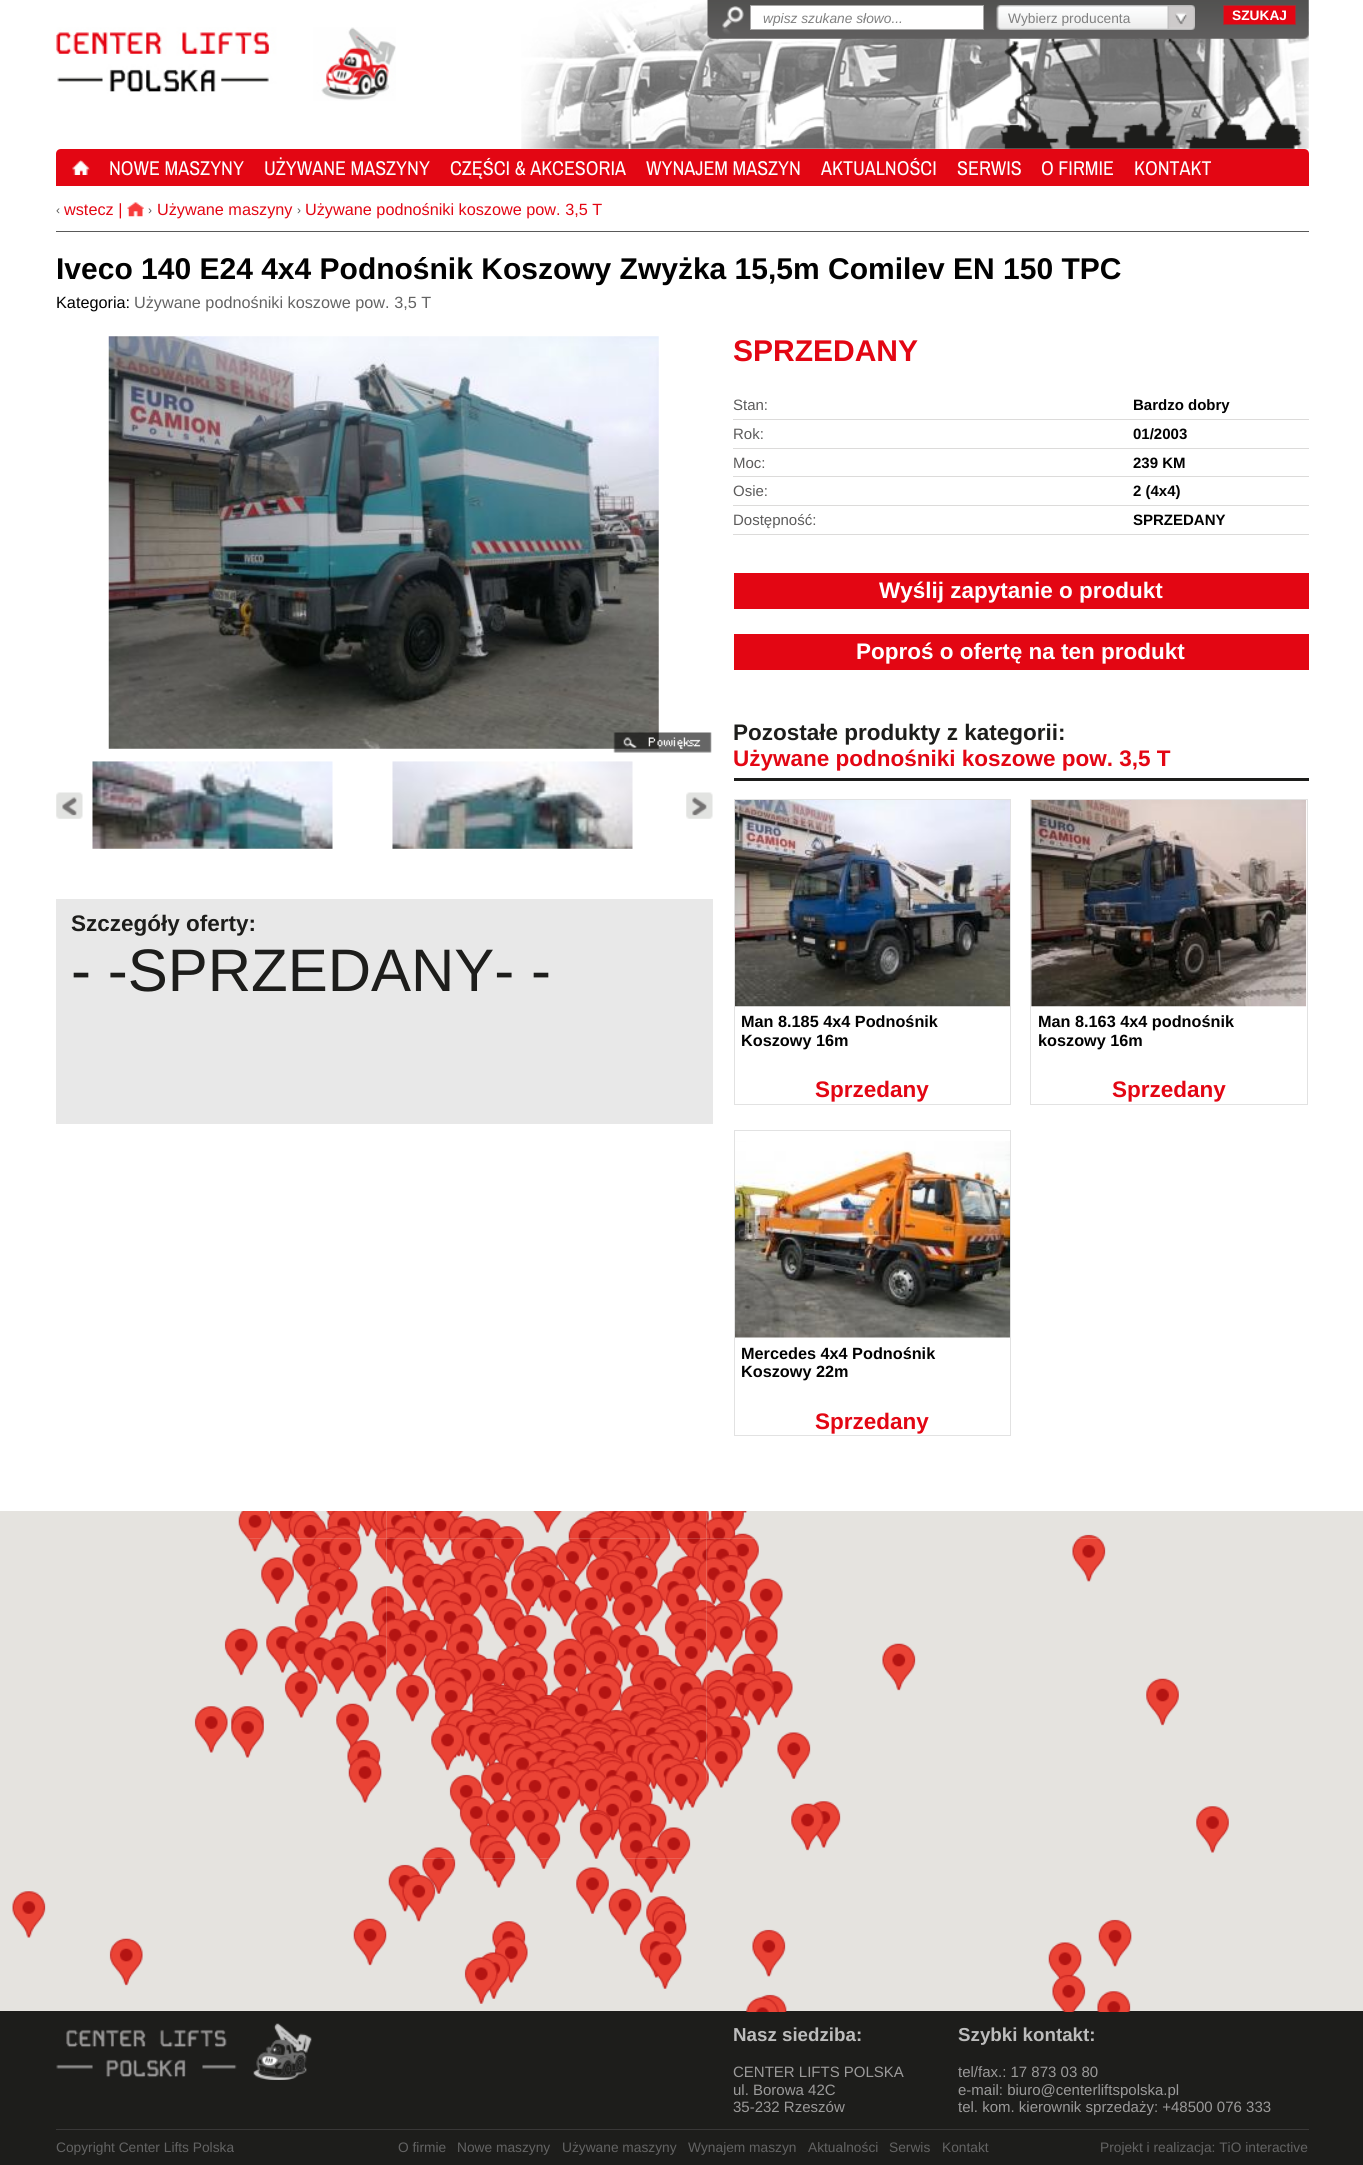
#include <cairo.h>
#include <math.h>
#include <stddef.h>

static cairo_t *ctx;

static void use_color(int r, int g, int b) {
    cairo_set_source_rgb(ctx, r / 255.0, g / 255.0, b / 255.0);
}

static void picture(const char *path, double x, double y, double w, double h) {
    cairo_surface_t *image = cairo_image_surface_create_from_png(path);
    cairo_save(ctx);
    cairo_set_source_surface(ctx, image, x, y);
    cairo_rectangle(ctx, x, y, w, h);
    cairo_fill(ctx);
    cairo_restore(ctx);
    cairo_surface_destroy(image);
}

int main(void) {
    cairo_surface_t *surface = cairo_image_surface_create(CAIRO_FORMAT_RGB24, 1363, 2165);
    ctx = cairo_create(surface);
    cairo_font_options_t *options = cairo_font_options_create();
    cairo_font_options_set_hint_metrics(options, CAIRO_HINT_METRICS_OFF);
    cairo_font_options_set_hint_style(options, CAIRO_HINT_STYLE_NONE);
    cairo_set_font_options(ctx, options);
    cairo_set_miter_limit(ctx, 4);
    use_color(29, 29, 27);
    cairo_paint(ctx);
    use_color(255, 255, 255);
    cairo_rectangle(ctx, 0, 0, 1363, 1511);
    cairo_fill(ctx);
    picture("img1.png", 521, 0, 788, 149);
    picture("img2.png", 707, 0, 602, 39);
    cairo_rectangle(ctx, 750.5, 5.5, 233, 24);
    cairo_fill_preserve(ctx);
    use_color(166, 165, 165);
    cairo_set_line_width(ctx, 1);
    cairo_stroke(ctx);
    cairo_select_font_face(ctx, "Liberation Sans", CAIRO_FONT_SLANT_ITALIC, CAIRO_FONT_WEIGHT_NORMAL);
    cairo_set_font_size(ctx, 13.75);
    use_color(128, 128, 128);
    cairo_move_to(ctx, 763, 23);
    cairo_show_text(ctx, "wpisz szukane słowo...");
    picture("img3.png", 996, 5, 199, 25);
    cairo_select_font_face(ctx, "Liberation Sans", CAIRO_FONT_SLANT_NORMAL, CAIRO_FONT_WEIGHT_NORMAL);
    cairo_move_to(ctx, 1008, 23);
    cairo_show_text(ctx, "Wybierz producenta");
    use_color(227, 6, 19);
    cairo_rectangle(ctx, 1223.5, 5.5, 72, 19);
    cairo_fill_preserve(ctx);
    use_color(155, 50, 56);
    cairo_stroke(ctx);
    cairo_select_font_face(ctx, "Liberation Sans", CAIRO_FONT_SLANT_NORMAL, CAIRO_FONT_WEIGHT_BOLD);
    use_color(255, 255, 255);
    cairo_move_to(ctx, 1232, 20);
    cairo_show_text(ctx, "SZUKAJ");
    picture("img4.png", 56, 27, 340, 74);
    use_color(227, 6, 19);
    cairo_new_path(ctx);
    cairo_move_to(ctx, 61, 149);
    cairo_line_to(ctx, 1304, 149);
    cairo_curve_to(ctx, 1307, 149, 1309, 151, 1309, 154);
    cairo_line_to(ctx, 1309, 186);
    cairo_line_to(ctx, 56, 186);
    cairo_line_to(ctx, 56, 154);
    cairo_curve_to(ctx, 56, 151, 58, 149, 61, 149);
    cairo_close_path(ctx);
    cairo_fill(ctx);
    picture("img5.png", 72, 160, 18, 15);
    cairo_select_font_face(ctx, "Archivo Narrow", CAIRO_FONT_SLANT_NORMAL, CAIRO_FONT_WEIGHT_NORMAL);
    cairo_set_font_size(ctx, 20);
    use_color(255, 255, 255);
    cairo_move_to(ctx, 109, 175);
    cairo_show_text(ctx, "NOWE MASZYNY");
    cairo_move_to(ctx, 264, 175);
    cairo_show_text(ctx, "UŻYWANE MASZYNY");
    cairo_move_to(ctx, 450, 175);
    cairo_show_text(ctx, "CZĘŚCI & AKCESORIA");
    cairo_move_to(ctx, 646, 175);
    cairo_show_text(ctx, "WYNAJEM MASZYN");
    cairo_move_to(ctx, 821, 175);
    cairo_show_text(ctx, "AKTUALNOŚCI");
    cairo_move_to(ctx, 957, 175);
    cairo_show_text(ctx, "SERWIS");
    cairo_move_to(ctx, 1041, 175);
    cairo_show_text(ctx, "O FIRMIE");
    cairo_move_to(ctx, 1134, 175);
    cairo_show_text(ctx, "KONTAKT");
    use_color(89, 89, 89);
    cairo_rectangle(ctx, 56, 231, 1253, 1);
    cairo_fill(ctx);
    cairo_select_font_face(ctx, "Liberation Sans", CAIRO_FONT_SLANT_NORMAL, CAIRO_FONT_WEIGHT_NORMAL);
    cairo_set_font_size(ctx, 12);
    use_color(85, 85, 84);
    cairo_move_to(ctx, 56, 214);
    cairo_show_text(ctx, "‹");
    cairo_set_font_size(ctx, 16.25);
    use_color(227, 6, 19);
    cairo_move_to(ctx, 64, 215);
    cairo_show_text(ctx, "wstecz |");
    picture("img6.png", 127, 202, 17, 15);
    cairo_set_font_size(ctx, 12);
    use_color(85, 85, 84);
    cairo_move_to(ctx, 148, 214);
    cairo_show_text(ctx, "›");
    cairo_set_font_size(ctx, 16.25);
    use_color(227, 6, 19);
    cairo_move_to(ctx, 157, 215);
    cairo_show_text(ctx, "Używane maszyny");
    cairo_set_font_size(ctx, 12);
    use_color(85, 85, 84);
    cairo_move_to(ctx, 297, 214);
    cairo_show_text(ctx, "›");
    cairo_set_font_size(ctx, 16.25);
    use_color(227, 6, 19);
    cairo_move_to(ctx, 305, 215);
    cairo_show_text(ctx, "Używane podnośniki koszowe pow. 3,5 T");
    cairo_select_font_face(ctx, "Liberation Sans", CAIRO_FONT_SLANT_NORMAL, CAIRO_FONT_WEIGHT_BOLD);
    cairo_set_font_size(ctx, 30);
    use_color(1, 1, 1);
    cairo_move_to(ctx, 56, 279);
    cairo_show_text(ctx, "Iveco 140 E24 4x4 Podnośnik Koszowy Zwyżka 15,5m Comilev EN 150 TPC");
    cairo_select_font_face(ctx, "Liberation Sans", CAIRO_FONT_SLANT_NORMAL, CAIRO_FONT_WEIGHT_NORMAL);
    cairo_set_font_size(ctx, 16.25);
    cairo_move_to(ctx, 56, 308);
    cairo_show_text(ctx, "Kategoria:");
    use_color(99, 99, 99);
    cairo_move_to(ctx, 134, 308);
    cairo_show_text(ctx, "Używane podnośniki koszowe pow. 3,5 T");
    picture("img7.png", 108, 336, 551, 413);
    picture("img8.png", 613, 732, 99, 21);
    picture("img9.png", 56, 792, 27, 27);
    picture("img10.png", 92, 761, 241, 88);
    picture("img11.png", 392, 761, 241, 88);
    picture("img12.png", 686, 792, 27, 27);
    use_color(232, 232, 232);
    cairo_rectangle(ctx, 56, 899, 657, 225);
    cairo_fill(ctx);
    cairo_select_font_face(ctx, "Liberation Sans", CAIRO_FONT_SLANT_NORMAL, CAIRO_FONT_WEIGHT_BOLD);
    cairo_set_font_size(ctx, 22.5);
    use_color(29, 29, 27);
    cairo_move_to(ctx, 71, 931);
    cairo_show_text(ctx, "Szczegóły oferty:");
    cairo_select_font_face(ctx, "Liberation Sans", CAIRO_FONT_SLANT_NORMAL, CAIRO_FONT_WEIGHT_NORMAL);
    cairo_set_font_size(ctx, 60);
    cairo_move_to(ctx, 71, 991);
    cairo_show_text(ctx, "- -SPRZEDANY- -");
    cairo_select_font_face(ctx, "Liberation Sans", CAIRO_FONT_SLANT_NORMAL, CAIRO_FONT_WEIGHT_BOLD);
    cairo_set_font_size(ctx, 30);
    use_color(227, 6, 19);
    cairo_move_to(ctx, 733, 361);
    cairo_show_text(ctx, "SPRZEDANY");
    use_color(220, 219, 218);
    cairo_rectangle(ctx, 733, 419, 576, 1);
    cairo_fill(ctx);
    cairo_select_font_face(ctx, "Liberation Sans", CAIRO_FONT_SLANT_NORMAL, CAIRO_FONT_WEIGHT_NORMAL);
    cairo_set_font_size(ctx, 15);
    use_color(92, 91, 91);
    cairo_move_to(ctx, 733, 410);
    cairo_show_text(ctx, "Stan:");
    cairo_select_font_face(ctx, "Liberation Sans", CAIRO_FONT_SLANT_NORMAL, CAIRO_FONT_WEIGHT_BOLD);
    use_color(1, 1, 1);
    cairo_move_to(ctx, 1133, 410);
    cairo_show_text(ctx, "Bardzo dobry");
    use_color(220, 219, 218);
    cairo_rectangle(ctx, 733, 448, 576, 1);
    cairo_fill(ctx);
    cairo_select_font_face(ctx, "Liberation Sans", CAIRO_FONT_SLANT_NORMAL, CAIRO_FONT_WEIGHT_NORMAL);
    use_color(92, 91, 91);
    cairo_move_to(ctx, 733, 439);
    cairo_show_text(ctx, "Rok:");
    cairo_select_font_face(ctx, "Liberation Sans", CAIRO_FONT_SLANT_NORMAL, CAIRO_FONT_WEIGHT_BOLD);
    use_color(1, 1, 1);
    cairo_move_to(ctx, 1133, 439);
    cairo_show_text(ctx, "01/2003");
    use_color(220, 219, 218);
    cairo_rectangle(ctx, 733, 476, 576, 1);
    cairo_fill(ctx);
    cairo_select_font_face(ctx, "Liberation Sans", CAIRO_FONT_SLANT_NORMAL, CAIRO_FONT_WEIGHT_NORMAL);
    use_color(92, 91, 91);
    cairo_move_to(ctx, 733, 468);
    cairo_show_text(ctx, "Moc:");
    cairo_select_font_face(ctx, "Liberation Sans", CAIRO_FONT_SLANT_NORMAL, CAIRO_FONT_WEIGHT_BOLD);
    use_color(1, 1, 1);
    cairo_move_to(ctx, 1133, 468);
    cairo_show_text(ctx, "239 KM");
    use_color(220, 219, 218);
    cairo_rectangle(ctx, 733, 505, 576, 1);
    cairo_fill(ctx);
    cairo_select_font_face(ctx, "Liberation Sans", CAIRO_FONT_SLANT_NORMAL, CAIRO_FONT_WEIGHT_NORMAL);
    use_color(92, 91, 91);
    cairo_move_to(ctx, 733, 496);
    cairo_show_text(ctx, "Osie:");
    cairo_select_font_face(ctx, "Liberation Sans", CAIRO_FONT_SLANT_NORMAL, CAIRO_FONT_WEIGHT_BOLD);
    use_color(1, 1, 1);
    cairo_move_to(ctx, 1133, 496);
    cairo_show_text(ctx, "2 (4x4)");
    use_color(220, 219, 218);
    cairo_rectangle(ctx, 733, 534, 576, 1);
    cairo_fill(ctx);
    cairo_select_font_face(ctx, "Liberation Sans", CAIRO_FONT_SLANT_NORMAL, CAIRO_FONT_WEIGHT_NORMAL);
    use_color(92, 91, 91);
    cairo_move_to(ctx, 733, 525);
    cairo_show_text(ctx, "Dostępność:");
    cairo_select_font_face(ctx, "Liberation Sans", CAIRO_FONT_SLANT_NORMAL, CAIRO_FONT_WEIGHT_BOLD);
    use_color(1, 1, 1);
    cairo_move_to(ctx, 1133, 525);
    cairo_show_text(ctx, "SPRZEDANY");
    use_color(227, 6, 19);
    cairo_rectangle(ctx, 734, 573, 575, 36);
    cairo_fill(ctx);
    cairo_set_font_size(ctx, 22.5);
    use_color(255, 255, 255);
    cairo_move_to(ctx, 879, 598);
    cairo_show_text(ctx, "Wyślij zapytanie o produkt");
    use_color(227, 6, 19);
    cairo_rectangle(ctx, 734, 634, 575, 36);
    cairo_fill(ctx);
    use_color(255, 255, 255);
    cairo_move_to(ctx, 856, 659);
    cairo_show_text(ctx, "Poproś o ofertę na ten produkt");
    use_color(29, 29, 27);
    cairo_rectangle(ctx, 734, 778, 575, 3);
    cairo_fill(ctx);
    cairo_move_to(ctx, 733, 740);
    cairo_show_text(ctx, "Pozostałe produkty z kategorii:");
    use_color(227, 6, 19);
    cairo_move_to(ctx, 733, 766);
    cairo_show_text(ctx, "Używane podnośniki koszowe pow. 3,5 T");
    cairo_rectangle(ctx, 734.5, 799.5, 276, 305);
    use_color(226, 226, 226);
    cairo_stroke(ctx);
    picture("img13.png", 735, 800, 275, 207);
    cairo_set_font_size(ctx, 16.25);
    use_color(1, 1, 1);
    cairo_move_to(ctx, 741, 1027);
    cairo_show_text(ctx, "Man 8.185 4x4 Podnośnik");
    cairo_move_to(ctx, 741, 1046);
    cairo_show_text(ctx, "Koszowy 16m");
    cairo_set_font_size(ctx, 22.5);
    use_color(227, 6, 19);
    cairo_move_to(ctx, 815, 1097);
    cairo_show_text(ctx, "Sprzedany");
    cairo_rectangle(ctx, 1030.5, 799.5, 277, 305);
    use_color(226, 226, 226);
    cairo_stroke(ctx);
    picture("img14.png", 1031, 800, 276, 207);
    cairo_set_font_size(ctx, 16.25);
    use_color(1, 1, 1);
    cairo_move_to(ctx, 1038, 1027);
    cairo_show_text(ctx, "Man 8.163 4x4 podnośnik");
    cairo_move_to(ctx, 1038, 1046);
    cairo_show_text(ctx, "koszowy 16m");
    cairo_set_font_size(ctx, 22.5);
    use_color(227, 6, 19);
    cairo_move_to(ctx, 1112, 1097);
    cairo_show_text(ctx, "Sprzedany");
    cairo_rectangle(ctx, 734.5, 1130.5, 276, 305);
    use_color(226, 226, 226);
    cairo_stroke(ctx);
    picture("img15.png", 735, 1141, 275, 197);
    cairo_set_font_size(ctx, 16.25);
    use_color(1, 1, 1);
    cairo_move_to(ctx, 741, 1359);
    cairo_show_text(ctx, "Mercedes 4x4 Podnośnik");
    cairo_move_to(ctx, 741, 1377);
    cairo_show_text(ctx, "Koszowy 22m");
    cairo_set_font_size(ctx, 22.5);
    use_color(227, 6, 19);
    cairo_move_to(ctx, 815, 1429);
    cairo_show_text(ctx, "Sprzedany");
    use_color(229, 227, 223);
    cairo_rectangle(ctx, 0, 1511, 1363, 500);
    cairo_fill(ctx);
    picture("img21.png", 386, 1538, 321, 321);
    picture("img20.png", 194, 1538, 193, 265);
    picture("img16.png", 238, 1511, 149, 28);
    picture("img17.png", 386, 1511, 321, 28);
    picture("img18.png", 706, 1511, 49, 28);
    picture("img19.png", 1078, 1534, 21, 5);
    picture("img22.png", 706, 1538, 210, 313);
    picture("img23.png", 1072, 1538, 157, 315);
    picture("img24.png", 12, 1891, 34, 47);
    picture("img25.png", 109, 1918, 278, 68);
    picture("img26.png", 388, 1858, 299, 146);
    picture("img27.png", 746, 1929, 41, 83);
    picture("img28.png", 1048, 1919, 84, 93);
    picture("img29.png", 56, 2023, 256, 57);
    cairo_set_font_size(ctx, 18.75);
    use_color(188, 188, 188);
    cairo_move_to(ctx, 733, 2041);
    cairo_show_text(ctx, "Nasz siedziba:");
    cairo_select_font_face(ctx, "Liberation Sans", CAIRO_FONT_SLANT_NORMAL, CAIRO_FONT_WEIGHT_NORMAL);
    cairo_set_font_size(ctx, 15);
    use_color(155, 154, 154);
    cairo_move_to(ctx, 733, 2077);
    cairo_show_text(ctx, "CENTER LIFTS POLSKA");
    cairo_move_to(ctx, 733, 2095);
    cairo_show_text(ctx, "ul. Borowa 42C");
    cairo_move_to(ctx, 733, 2112);
    cairo_show_text(ctx, "35-232 Rzeszów");
    cairo_select_font_face(ctx, "Liberation Sans", CAIRO_FONT_SLANT_NORMAL, CAIRO_FONT_WEIGHT_BOLD);
    cairo_set_font_size(ctx, 18.75);
    use_color(188, 188, 188);
    cairo_move_to(ctx, 958, 2041);
    cairo_show_text(ctx, "Szybki kontakt:");
    cairo_select_font_face(ctx, "Liberation Sans", CAIRO_FONT_SLANT_NORMAL, CAIRO_FONT_WEIGHT_NORMAL);
    cairo_set_font_size(ctx, 15);
    use_color(155, 154, 154);
    cairo_move_to(ctx, 958, 2077);
    cairo_show_text(ctx, "tel/fax.: 17 873 03 80");
    cairo_move_to(ctx, 958, 2095);
    cairo_show_text(ctx, "e-mail: biuro@centerliftspolska.pl");
    cairo_move_to(ctx, 958, 2112);
    cairo_show_text(ctx, "tel. kom. kierownik sprzedaży: +48500 076 333");
    use_color(57, 56, 56);
    cairo_rectangle(ctx, 56, 2129, 1253, 1);
    cairo_fill(ctx);
    cairo_set_font_size(ctx, 13.75);
    use_color(99, 99, 99);
    cairo_move_to(ctx, 56, 2152);
    cairo_show_text(ctx, "Copyright Center Lifts Polska");
    cairo_move_to(ctx, 398, 2152);
    cairo_show_text(ctx, "O firmie");
    cairo_move_to(ctx, 457, 2152);
    cairo_show_text(ctx, "Nowe maszyny");
    cairo_move_to(ctx, 562, 2152);
    cairo_show_text(ctx, "Używane maszyny");
    cairo_move_to(ctx, 688, 2152);
    cairo_show_text(ctx, "Wynajem maszyn");
    cairo_move_to(ctx, 808, 2152);
    cairo_show_text(ctx, "Aktualności");
    cairo_move_to(ctx, 889, 2152);
    cairo_show_text(ctx, "Serwis");
    cairo_move_to(ctx, 942, 2152);
    cairo_show_text(ctx, "Kontakt");
    cairo_move_to(ctx, 1100, 2152);
    cairo_show_text(ctx, "Projekt i realizacja: TiO interactive");
    cairo_surface_write_to_png(surface, "result.png");
    cairo_font_options_destroy(options);
    cairo_destroy(ctx);
    cairo_surface_destroy(surface);
    return 0;
}
